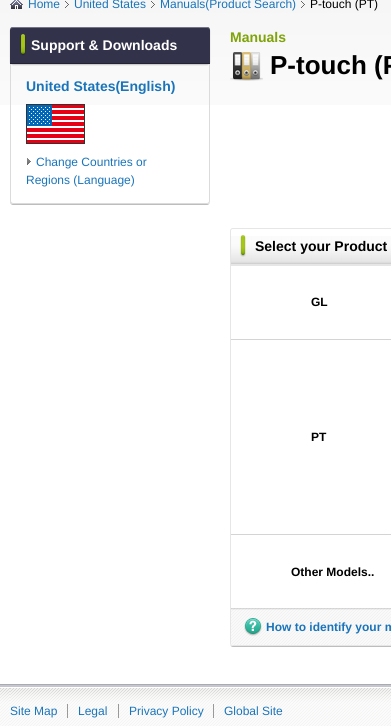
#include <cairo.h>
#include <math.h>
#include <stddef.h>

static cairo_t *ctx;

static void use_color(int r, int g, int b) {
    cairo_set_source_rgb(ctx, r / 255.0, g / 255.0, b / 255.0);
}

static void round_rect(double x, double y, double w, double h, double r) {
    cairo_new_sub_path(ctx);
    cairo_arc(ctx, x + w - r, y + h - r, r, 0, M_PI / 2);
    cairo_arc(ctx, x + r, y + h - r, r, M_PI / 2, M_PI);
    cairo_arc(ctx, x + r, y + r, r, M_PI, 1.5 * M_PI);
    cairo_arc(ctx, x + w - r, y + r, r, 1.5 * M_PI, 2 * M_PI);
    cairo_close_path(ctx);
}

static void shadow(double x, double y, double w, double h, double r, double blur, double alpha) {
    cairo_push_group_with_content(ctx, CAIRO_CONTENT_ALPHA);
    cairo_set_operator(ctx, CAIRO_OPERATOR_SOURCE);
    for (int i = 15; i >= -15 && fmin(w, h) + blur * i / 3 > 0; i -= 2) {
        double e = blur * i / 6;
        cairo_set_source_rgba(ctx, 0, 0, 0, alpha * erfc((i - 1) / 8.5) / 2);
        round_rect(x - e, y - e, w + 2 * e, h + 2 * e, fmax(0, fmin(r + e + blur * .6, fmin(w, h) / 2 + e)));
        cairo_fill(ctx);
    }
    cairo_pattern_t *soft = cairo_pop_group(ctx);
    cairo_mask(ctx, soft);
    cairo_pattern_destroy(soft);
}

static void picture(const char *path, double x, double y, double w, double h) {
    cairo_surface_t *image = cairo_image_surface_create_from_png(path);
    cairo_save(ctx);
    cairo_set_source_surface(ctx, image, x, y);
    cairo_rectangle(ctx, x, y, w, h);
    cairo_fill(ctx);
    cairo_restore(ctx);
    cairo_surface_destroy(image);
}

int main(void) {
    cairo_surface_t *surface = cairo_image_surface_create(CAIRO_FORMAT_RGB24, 391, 726);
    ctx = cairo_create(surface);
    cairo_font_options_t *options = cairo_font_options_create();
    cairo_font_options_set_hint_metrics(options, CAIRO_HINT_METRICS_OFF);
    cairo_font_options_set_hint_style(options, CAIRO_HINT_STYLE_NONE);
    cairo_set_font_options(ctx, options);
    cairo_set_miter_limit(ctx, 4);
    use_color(255, 255, 255);
    cairo_paint(ctx);
    picture("img1.png", 0, 0, 391, 105);
    picture("img2.png", 10, 0, 13, 9);
    picture("img3.png", 65, 1, 4, 7);
    cairo_select_font_face(ctx, "Liberation Sans", CAIRO_FONT_SLANT_NORMAL, CAIRO_FONT_WEIGHT_NORMAL);
    cairo_set_font_size(ctx, 12);
    use_color(26, 116, 186);
    cairo_move_to(ctx, 28, 8);
    cairo_show_text(ctx, "Home");
    picture("img3.png", 151, 1, 4, 7);
    cairo_move_to(ctx, 74, 8);
    cairo_show_text(ctx, "United States");
    picture("img3.png", 301, 1, 4, 7);
    cairo_move_to(ctx, 160, 8);
    cairo_show_text(ctx, "Manuals(Product Search)");
    use_color(0, 0, 0);
    cairo_move_to(ctx, 310, 8);
    cairo_show_text(ctx, "P-touch (PT)");
    use_color(0, 0, 0);
    shadow(10, 28, 200, 37, 3, 0.5, 0.2);
    use_color(50, 50, 74);
    cairo_new_path(ctx);
    cairo_move_to(ctx, 13, 27);
    cairo_line_to(ctx, 207, 27);
    cairo_curve_to(ctx, 208.5, 27, 210, 28.5, 210, 30);
    cairo_line_to(ctx, 210, 64);
    cairo_line_to(ctx, 10, 64);
    cairo_line_to(ctx, 10, 30);
    cairo_curve_to(ctx, 10, 28.5, 11.5, 27, 13, 27);
    cairo_close_path(ctx);
    cairo_fill(ctx);
    use_color(115, 116, 136);
    cairo_new_path(ctx);
    cairo_move_to(ctx, 13, 27);
    cairo_curve_to(ctx, 11, 27, 10, 28, 10, 30);
    cairo_curve_to(ctx, 10, 29, 11, 28, 13, 28);
    cairo_line_to(ctx, 207, 28);
    cairo_curve_to(ctx, 209, 28, 210, 29, 210, 30);
    cairo_curve_to(ctx, 210, 28, 209, 27, 207, 27);
    cairo_close_path(ctx);
    cairo_fill(ctx);
    use_color(35, 35, 52);
    cairo_rectangle(ctx, 10, 63, 200, 1);
    cairo_fill(ctx);
    picture("img4.png", 20, 34, 6, 22);
    cairo_select_font_face(ctx, "Liberation Sans", CAIRO_FONT_SLANT_NORMAL, CAIRO_FONT_WEIGHT_BOLD);
    cairo_set_font_size(ctx, 14);
    use_color(255, 255, 255);
    cairo_move_to(ctx, 31, 50);
    cairo_show_text(ctx, "Support & Downloads");
    use_color(190, 189, 190);
    cairo_new_path(ctx);
    cairo_move_to(ctx, 10, 201);
    cairo_curve_to(ctx, 10, 203, 11, 205, 13, 205);
    cairo_line_to(ctx, 207, 205);
    cairo_curve_to(ctx, 209, 205, 210, 203, 210, 201);
    cairo_curve_to(ctx, 210, 203, 209, 204, 207, 204);
    cairo_line_to(ctx, 12, 204);
    cairo_line_to(ctx, 11, 203);
    cairo_close_path(ctx);
    cairo_fill(ctx);
    use_color(219, 219, 219);
    cairo_set_fill_rule(ctx, CAIRO_FILL_RULE_EVEN_ODD);
    cairo_new_path(ctx);
    cairo_move_to(ctx, 10, 64);
    cairo_line_to(ctx, 210, 64);
    cairo_line_to(ctx, 210, 201);
    cairo_curve_to(ctx, 210, 203, 209, 204, 207, 204);
    cairo_line_to(ctx, 13, 204);
    cairo_curve_to(ctx, 11, 204, 10, 203, 10, 201);
    cairo_close_path(ctx);
    cairo_move_to(ctx, 11, 64);
    cairo_line_to(ctx, 209, 64);
    cairo_line_to(ctx, 209, 201);
    cairo_curve_to(ctx, 209, 202, 208, 203, 207, 203);
    cairo_line_to(ctx, 13, 203);
    cairo_curve_to(ctx, 12, 203, 11, 202, 11, 201);
    cairo_close_path(ctx);
    cairo_fill(ctx);
    use_color(26, 116, 186);
    cairo_move_to(ctx, 26, 91);
    cairo_show_text(ctx, "United States(English)");
    picture("img5.png", 26, 104, 59, 40);
    picture("img6.png", 27, 158, 4, 7);
    cairo_select_font_face(ctx, "Liberation Sans", CAIRO_FONT_SLANT_NORMAL, CAIRO_FONT_WEIGHT_NORMAL);
    cairo_set_font_size(ctx, 12);
    cairo_move_to(ctx, 36, 166);
    cairo_show_text(ctx, "Change Countries or");
    cairo_move_to(ctx, 26, 184);
    cairo_show_text(ctx, "Regions (Language)");
    cairo_select_font_face(ctx, "Liberation Sans", CAIRO_FONT_SLANT_NORMAL, CAIRO_FONT_WEIGHT_BOLD);
    cairo_set_font_size(ctx, 14);
    use_color(127, 163, 8);
    cairo_move_to(ctx, 230, 42);
    cairo_show_text(ctx, "Manuals");
    picture("img7.png", 230, 52, 33, 29);
    cairo_set_font_size(ctx, 26);
    use_color(0, 0, 0);
    cairo_move_to(ctx, 270, 74);
    cairo_show_text(ctx, "P-touch (P");
    picture("img8.png", 231, 236, 160, 28);
    cairo_new_path(ctx);
    cairo_move_to(ctx, 233, 228.5);
    cairo_line_to(ctx, 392, 228.5);
    cairo_curve_to(ctx, 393.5, 228.5, 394.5, 229.5, 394.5, 231);
    cairo_line_to(ctx, 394.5, 264.5);
    cairo_line_to(ctx, 230.5, 264.5);
    cairo_line_to(ctx, 230.5, 231);
    cairo_curve_to(ctx, 230.5, 229.5, 231.5, 228.5, 233, 228.5);
    cairo_close_path(ctx);
    use_color(230, 230, 230);
    cairo_set_line_width(ctx, 1);
    cairo_stroke(ctx);
    picture("img9.png", 240, 235, 6, 22);
    cairo_set_font_size(ctx, 14);
    use_color(0, 0, 0);
    cairo_move_to(ctx, 255, 251);
    cairo_show_text(ctx, "Select your Product");
    use_color(190, 189, 190);
    cairo_set_fill_rule(ctx, CAIRO_FILL_RULE_WINDING);
    cairo_new_path(ctx);
    cairo_move_to(ctx, 230, 643);
    cairo_curve_to(ctx, 230, 645, 231, 647, 233, 647);
    cairo_line_to(ctx, 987, 647);
    cairo_curve_to(ctx, 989, 647, 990, 645, 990, 643);
    cairo_curve_to(ctx, 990, 645, 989, 646, 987, 646);
    cairo_line_to(ctx, 233, 646);
    cairo_curve_to(ctx, 231, 646, 230, 645, 230, 643);
    cairo_close_path(ctx);
    cairo_fill(ctx);
    use_color(249, 249, 249);
    cairo_rectangle(ctx, 230, 643, 1, 2);
    cairo_fill(ctx);
    cairo_new_path(ctx);
    cairo_move_to(ctx, 230.5, 265.5);
    cairo_line_to(ctx, 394.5, 265.5);
    cairo_line_to(ctx, 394.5, 643);
    cairo_curve_to(ctx, 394.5, 644.5, 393.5, 645.5, 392, 645.5);
    cairo_line_to(ctx, 233, 645.5);
    cairo_curve_to(ctx, 231.5, 645.5, 230.5, 644.5, 230.5, 643);
    cairo_close_path(ctx);
    use_color(230, 230, 230);
    cairo_stroke(ctx);
    cairo_set_font_size(ctx, 12);
    use_color(0, 0, 0);
    cairo_move_to(ctx, 311, 306);
    cairo_show_text(ctx, "GL");
    use_color(212, 212, 212);
    cairo_rectangle(ctx, 231, 339, 160, 1);
    cairo_fill(ctx);
    use_color(0, 0, 0);
    cairo_move_to(ctx, 311, 441);
    cairo_show_text(ctx, "PT");
    use_color(212, 212, 212);
    cairo_rectangle(ctx, 231, 534, 160, 1);
    cairo_fill(ctx);
    use_color(0, 0, 0);
    cairo_move_to(ctx, 291, 576);
    cairo_show_text(ctx, "Other Models..");
    picture("img10.png", 231, 608, 160, 37);
    picture("img11.png", 244, 618, 18, 18);
    use_color(26, 116, 186);
    cairo_move_to(ctx, 266, 631);
    cairo_show_text(ctx, "How to identify your m");
    picture("img12.png", 0, 684, 391, 42);
    picture("img13.png", 10, 688, 381, 38);
    cairo_select_font_face(ctx, "Liberation Sans", CAIRO_FONT_SLANT_NORMAL, CAIRO_FONT_WEIGHT_NORMAL);
    cairo_move_to(ctx, 10, 715);
    cairo_show_text(ctx, "Site Map");
    use_color(153, 153, 153);
    cairo_rectangle(ctx, 67, 704, 1, 14);
    cairo_fill(ctx);
    use_color(26, 116, 186);
    cairo_move_to(ctx, 78, 715);
    cairo_show_text(ctx, "Legal");
    use_color(153, 153, 153);
    cairo_rectangle(ctx, 118, 704, 1, 14);
    cairo_fill(ctx);
    use_color(26, 116, 186);
    cairo_move_to(ctx, 129, 715);
    cairo_show_text(ctx, "Privacy Policy");
    use_color(153, 153, 153);
    cairo_rectangle(ctx, 213, 704, 1, 14);
    cairo_fill(ctx);
    use_color(26, 116, 186);
    cairo_move_to(ctx, 224, 715);
    cairo_show_text(ctx, "Global Site");
    cairo_surface_write_to_png(surface, "result.png");
    cairo_font_options_destroy(options);
    cairo_destroy(ctx);
    cairo_surface_destroy(surface);
    return 0;
}
